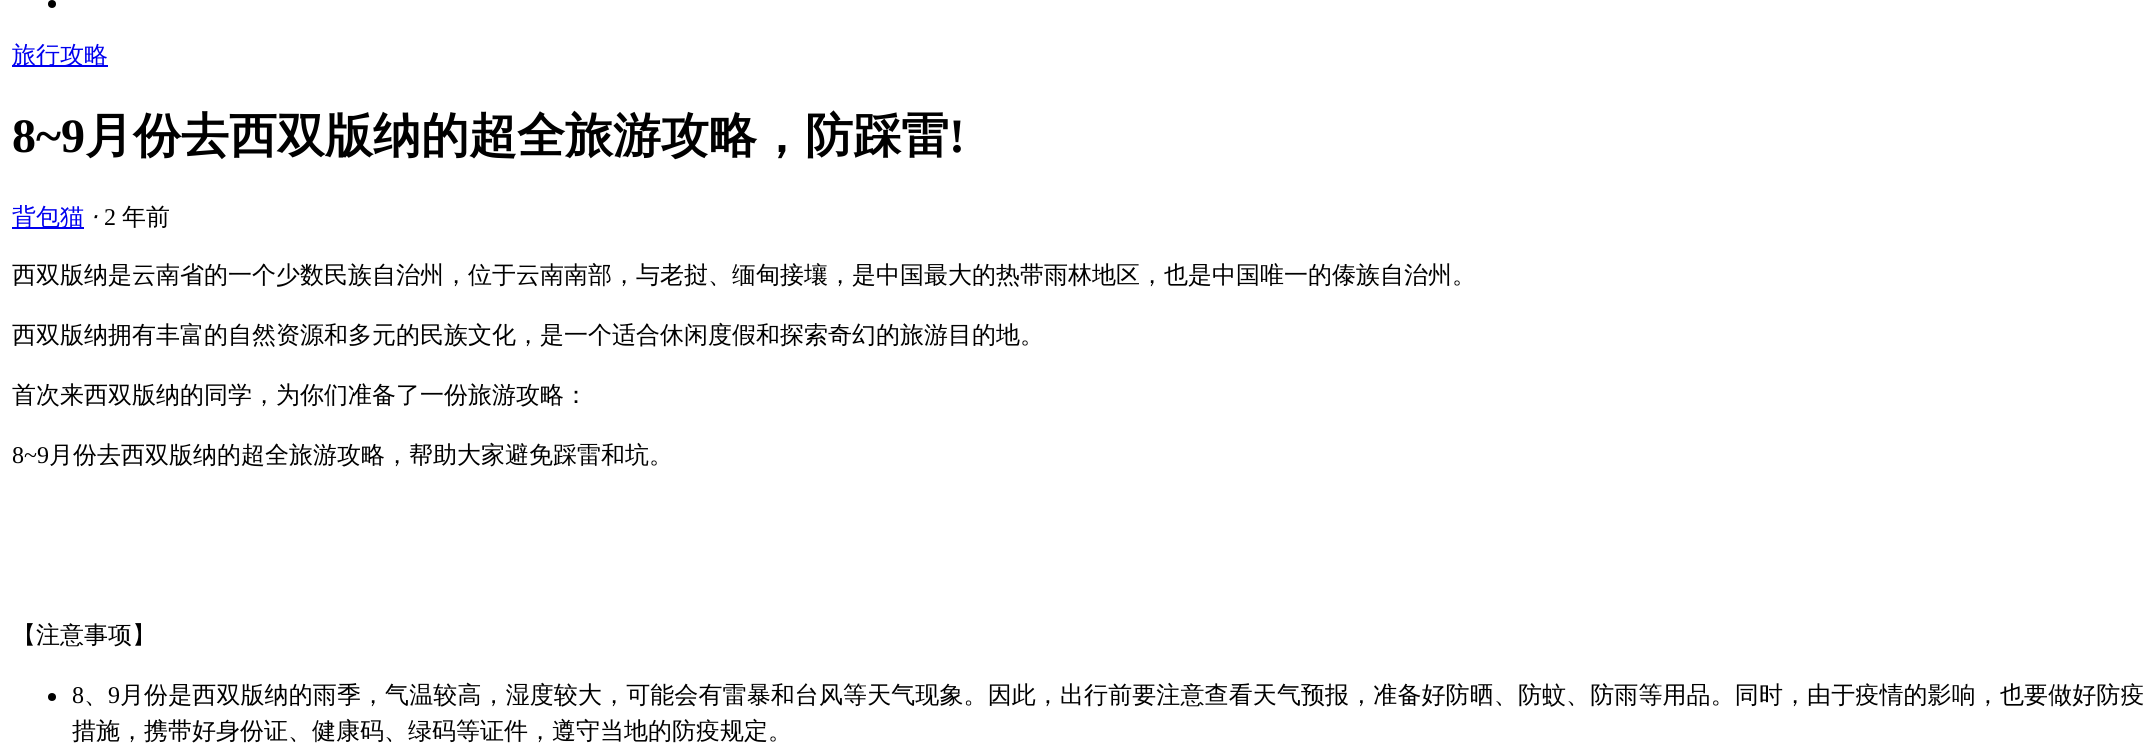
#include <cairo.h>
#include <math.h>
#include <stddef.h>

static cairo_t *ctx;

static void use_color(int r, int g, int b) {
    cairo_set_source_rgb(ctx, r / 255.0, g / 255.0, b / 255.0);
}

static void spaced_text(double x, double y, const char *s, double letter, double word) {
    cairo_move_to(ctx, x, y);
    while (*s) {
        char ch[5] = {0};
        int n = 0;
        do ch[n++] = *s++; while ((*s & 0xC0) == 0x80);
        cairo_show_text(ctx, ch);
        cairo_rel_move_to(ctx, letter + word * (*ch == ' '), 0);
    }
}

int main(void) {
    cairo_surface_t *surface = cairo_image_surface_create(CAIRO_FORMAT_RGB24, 2155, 743);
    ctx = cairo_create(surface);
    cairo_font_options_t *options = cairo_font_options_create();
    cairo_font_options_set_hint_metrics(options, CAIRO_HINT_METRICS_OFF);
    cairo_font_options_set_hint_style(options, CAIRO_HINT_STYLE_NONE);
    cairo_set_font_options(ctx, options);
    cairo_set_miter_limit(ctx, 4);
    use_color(255, 255, 255);
    cairo_paint(ctx);
    use_color(0, 0, 0);
    cairo_arc(ctx, 52, 4, 4, 0, 2 * M_PI);
    cairo_fill(ctx);
    use_color(0, 0, 238);
    cairo_rectangle(ctx, 12, 65, 96, 2);
    cairo_fill(ctx);
    cairo_select_font_face(ctx, "WenQuanYi Zen Hei Medium", CAIRO_FONT_SLANT_NORMAL, CAIRO_FONT_WEIGHT_NORMAL);
    cairo_set_font_size(ctx, 24);
    cairo_move_to(ctx, 12, 63);
    cairo_show_text(ctx, "旅行攻略");
    cairo_select_font_face(ctx, "Liberation Serif", CAIRO_FONT_SLANT_NORMAL, CAIRO_FONT_WEIGHT_BOLD);
    cairo_set_font_size(ctx, 48);
    use_color(0, 0, 0);
    cairo_move_to(ctx, 12, 152);
    cairo_show_text(ctx, "8~9");
    cairo_select_font_face(ctx, "WenQuanYi Zen Hei", CAIRO_FONT_SLANT_NORMAL, CAIRO_FONT_WEIGHT_BOLD);
    cairo_move_to(ctx, 85, 152);
    cairo_show_text(ctx, "月份去西双版纳的超全旅游攻略，防踩雷");
    cairo_select_font_face(ctx, "Liberation Serif", CAIRO_FONT_SLANT_NORMAL, CAIRO_FONT_WEIGHT_BOLD);
    cairo_move_to(ctx, 949, 152);
    cairo_show_text(ctx, "!");
    use_color(0, 0, 238);
    cairo_rectangle(ctx, 12, 227, 72, 2);
    cairo_fill(ctx);
    cairo_select_font_face(ctx, "WenQuanYi Zen Hei Medium", CAIRO_FONT_SLANT_NORMAL, CAIRO_FONT_WEIGHT_NORMAL);
    cairo_set_font_size(ctx, 24);
    cairo_move_to(ctx, 12, 225);
    cairo_show_text(ctx, "背包猫");
    cairo_select_font_face(ctx, "DejaVu Sans", CAIRO_FONT_SLANT_ITALIC, CAIRO_FONT_WEIGHT_NORMAL);
    use_color(0, 0, 0);
    cairo_move_to(ctx, 90, 225);
    cairo_show_text(ctx, "⋅");
    cairo_select_font_face(ctx, "Liberation Serif", CAIRO_FONT_SLANT_NORMAL, CAIRO_FONT_WEIGHT_NORMAL);
    cairo_move_to(ctx, 104, 225);
    cairo_show_text(ctx, "2");
    cairo_select_font_face(ctx, "WenQuanYi Zen Hei Medium", CAIRO_FONT_SLANT_NORMAL, CAIRO_FONT_WEIGHT_NORMAL);
    cairo_move_to(ctx, 122, 225);
    cairo_show_text(ctx, "年前");
    cairo_move_to(ctx, 12, 283);
    cairo_show_text(ctx, "西双版纳是云南省的一个少数民族自治州，位于云南南部，与老挝、缅甸接壤，是中国最大的热带雨林地区，也是中国唯一的傣族自治州。");
    cairo_move_to(ctx, 12, 343);
    cairo_show_text(ctx, "西双版纳拥有丰富的自然资源和多元的民族文化，是一个适合休闲度假和探索奇幻的旅游目的地。");
    cairo_move_to(ctx, 12, 403);
    cairo_show_text(ctx, "首次来西双版纳的同学，为你们准备了一份旅游攻略：");
    cairo_select_font_face(ctx, "Liberation Serif", CAIRO_FONT_SLANT_NORMAL, CAIRO_FONT_WEIGHT_NORMAL);
    cairo_move_to(ctx, 12, 463);
    cairo_show_text(ctx, "8~9");
    cairo_select_font_face(ctx, "WenQuanYi Zen Hei Medium", CAIRO_FONT_SLANT_NORMAL, CAIRO_FONT_WEIGHT_NORMAL);
    cairo_move_to(ctx, 49, 463);
    cairo_show_text(ctx, "月份去西双版纳的超全旅游攻略，帮助大家避免踩雷和坑。");
    cairo_move_to(ctx, 12, 643);
    cairo_show_text(ctx, "【注意事项】");
    cairo_new_path(ctx);
    cairo_arc(ctx, 52, 697, 4, 0, 2 * M_PI);
    cairo_fill(ctx);
    cairo_select_font_face(ctx, "Liberation Serif", CAIRO_FONT_SLANT_NORMAL, CAIRO_FONT_WEIGHT_NORMAL);
    spaced_text(72, 703, "8", 0.1, 0);
    cairo_select_font_face(ctx, "WenQuanYi Zen Hei Medium", CAIRO_FONT_SLANT_NORMAL, CAIRO_FONT_WEIGHT_NORMAL);
    spaced_text(84, 703, "、", 0.1, 0);
    cairo_select_font_face(ctx, "Liberation Serif", CAIRO_FONT_SLANT_NORMAL, CAIRO_FONT_WEIGHT_NORMAL);
    spaced_text(108, 703, "9", 0.1, 0);
    cairo_select_font_face(ctx, "WenQuanYi Zen Hei Medium", CAIRO_FONT_SLANT_NORMAL, CAIRO_FONT_WEIGHT_NORMAL);
    spaced_text(120, 703, "月份是西双版纳的雨季，气温较高，湿度较大，可能会有雷暴和台风等天气现象。因此，出行前要注意查看天气预报，准备好防晒、防蚊、防雨等用品。同时，由于疫情的影响，也要做好防疫", 0.1, 0);
    cairo_move_to(ctx, 72, 739);
    cairo_show_text(ctx, "措施，携带好身份证、健康码、绿码等证件，遵守当地的防疫规定。");
    cairo_surface_write_to_png(surface, "result.png");
    cairo_font_options_destroy(options);
    cairo_destroy(ctx);
    cairo_surface_destroy(surface);
    return 0;
}
